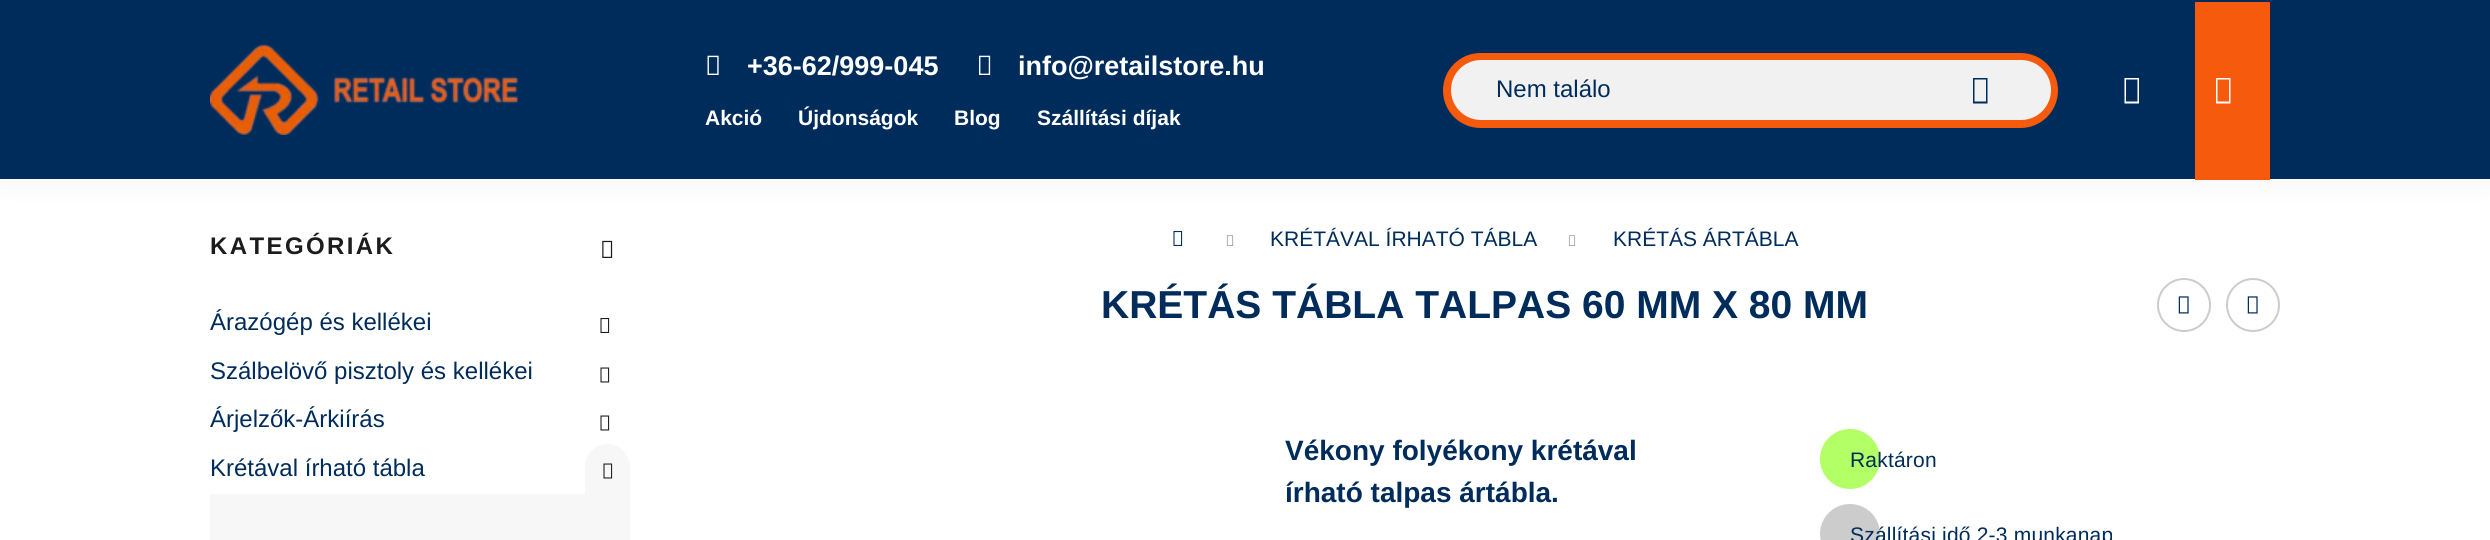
#include <cairo.h>
#include <math.h>
#include <stddef.h>

static cairo_t *ctx;

static void use_color(int r, int g, int b) {
    cairo_set_source_rgb(ctx, r / 255.0, g / 255.0, b / 255.0);
}

static void spaced_text(double x, double y, const char *s, double letter, double word) {
    cairo_move_to(ctx, x, y);
    while (*s) {
        char ch[5] = {0};
        int n = 0;
        do ch[n++] = *s++; while ((*s & 0xC0) == 0x80);
        cairo_show_text(ctx, ch);
        cairo_rel_move_to(ctx, letter + word * (*ch == ' '), 0);
    }
}

static void round_rect(double x, double y, double w, double h, double r) {
    cairo_new_sub_path(ctx);
    cairo_arc(ctx, x + w - r, y + h - r, r, 0, M_PI / 2);
    cairo_arc(ctx, x + r, y + h - r, r, M_PI / 2, M_PI);
    cairo_arc(ctx, x + r, y + r, r, M_PI, 1.5 * M_PI);
    cairo_arc(ctx, x + w - r, y + r, r, 1.5 * M_PI, 2 * M_PI);
    cairo_close_path(ctx);
}

static void shadow(double x, double y, double w, double h, double r, double blur, double alpha) {
    cairo_push_group_with_content(ctx, CAIRO_CONTENT_ALPHA);
    cairo_set_operator(ctx, CAIRO_OPERATOR_SOURCE);
    for (int i = 15; i >= -15 && fmin(w, h) + blur * i / 3 > 0; i -= 2) {
        double e = blur * i / 6;
        cairo_set_source_rgba(ctx, 0, 0, 0, alpha * erfc((i - 1) / 8.5) / 2);
        round_rect(x - e, y - e, w + 2 * e, h + 2 * e, fmax(0, fmin(r + e + blur * .6, fmin(w, h) / 2 + e)));
        cairo_fill(ctx);
    }
    cairo_pattern_t *soft = cairo_pop_group(ctx);
    cairo_mask(ctx, soft);
    cairo_pattern_destroy(soft);
}

static void picture(const char *path, double x, double y, double w, double h) {
    cairo_surface_t *image = cairo_image_surface_create_from_png(path);
    cairo_save(ctx);
    cairo_set_source_surface(ctx, image, x, y);
    cairo_rectangle(ctx, x, y, w, h);
    cairo_fill(ctx);
    cairo_restore(ctx);
    cairo_surface_destroy(image);
}

int main(void) {
    cairo_surface_t *surface = cairo_image_surface_create(CAIRO_FORMAT_RGB24, 2490, 540);
    ctx = cairo_create(surface);
    cairo_font_options_t *options = cairo_font_options_create();
    cairo_font_options_set_hint_metrics(options, CAIRO_HINT_METRICS_OFF);
    cairo_font_options_set_hint_style(options, CAIRO_HINT_STYLE_NONE);
    cairo_set_font_options(ctx, options);
    cairo_set_miter_limit(ctx, 4);
    use_color(255, 255, 255);
    cairo_paint(ctx);
    use_color(0, 0, 0);
    shadow(0, 0, 2490, 179, 0, 15, 0.05);
    use_color(0, 44, 91);
    cairo_rectangle(ctx, 0, 0, 2490, 179);
    cairo_fill(ctx);
    picture("img1.png", 210, 44, 308, 91);
    picture("img2.png", 707, 55, 12, 20);
    cairo_select_font_face(ctx, "Liberation Sans", CAIRO_FONT_SLANT_NORMAL, CAIRO_FONT_WEIGHT_BOLD);
    cairo_set_font_size(ctx, 27);
    use_color(255, 255, 255);
    cairo_move_to(ctx, 747, 75);
    cairo_show_text(ctx, "+36-62/999-045");
    picture("img3.png", 979, 55, 12, 20);
    cairo_move_to(ctx, 1018, 75);
    cairo_show_text(ctx, "info@retailstore.hu");
    cairo_set_font_size(ctx, 21);
    cairo_move_to(ctx, 705, 125);
    cairo_show_text(ctx, "Akció");
    cairo_move_to(ctx, 798, 125);
    cairo_show_text(ctx, "Újdonságok");
    cairo_move_to(ctx, 954, 125);
    cairo_show_text(ctx, "Blog");
    cairo_move_to(ctx, 1037, 125);
    cairo_show_text(ctx, "Szállítási díjak");
    use_color(245, 90, 13);
    round_rect(1443, 53, 615, 75, 37.5);
    cairo_fill(ctx);
    use_color(241, 241, 241);
    round_rect(1451, 60, 600, 60, 30);
    cairo_fill(ctx);
    cairo_select_font_face(ctx, "Liberation Sans", CAIRO_FONT_SLANT_NORMAL, CAIRO_FONT_WEIGHT_NORMAL);
    cairo_set_font_size(ctx, 24);
    use_color(0, 44, 91);
    cairo_move_to(ctx, 1496, 97);
    cairo_show_text(ctx, "Nem találo");
    cairo_new_path(ctx);
    cairo_move_to(ctx, 1973, 103.5);
    cairo_line_to(ctx, 1973, 78);
    cairo_line_to(ctx, 1987.5, 78);
    cairo_line_to(ctx, 1987.5, 103.5);
    cairo_close_path(ctx);
    cairo_move_to(ctx, 1974.5, 101.5);
    cairo_line_to(ctx, 1986, 101.5);
    cairo_line_to(ctx, 1986, 79.5);
    cairo_line_to(ctx, 1974.5, 79.5);
    cairo_close_path(ctx);
    cairo_fill(ctx);
    use_color(255, 255, 255);
    cairo_new_path(ctx);
    cairo_move_to(ctx, 2124.5, 103.5);
    cairo_line_to(ctx, 2124.5, 78);
    cairo_line_to(ctx, 2139, 78);
    cairo_line_to(ctx, 2139, 103.5);
    cairo_close_path(ctx);
    cairo_move_to(ctx, 2126, 101.5);
    cairo_line_to(ctx, 2137.5, 101.5);
    cairo_line_to(ctx, 2137.5, 79.5);
    cairo_line_to(ctx, 2126, 79.5);
    cairo_close_path(ctx);
    cairo_fill(ctx);
    use_color(245, 90, 13);
    cairo_rectangle(ctx, 2195, 2, 75, 178);
    cairo_fill(ctx);
    use_color(255, 255, 255);
    cairo_new_path(ctx);
    cairo_move_to(ctx, 2216, 103.5);
    cairo_line_to(ctx, 2216, 78);
    cairo_line_to(ctx, 2230.5, 78);
    cairo_line_to(ctx, 2230.5, 103.5);
    cairo_close_path(ctx);
    cairo_move_to(ctx, 2217.5, 101.5);
    cairo_line_to(ctx, 2229, 101.5);
    cairo_line_to(ctx, 2229, 79.5);
    cairo_line_to(ctx, 2217.5, 79.5);
    cairo_close_path(ctx);
    cairo_fill(ctx);
    cairo_select_font_face(ctx, "Liberation Sans", CAIRO_FONT_SLANT_NORMAL, CAIRO_FONT_WEIGHT_BOLD);
    use_color(28, 28, 28);
    spaced_text(210, 254, "KATEGÓRIÁK", 2.4, 0);
    picture("img4.png", 602, 240, 11, 18);
    cairo_select_font_face(ctx, "Liberation Sans", CAIRO_FONT_SLANT_NORMAL, CAIRO_FONT_WEIGHT_NORMAL);
    use_color(0, 44, 91);
    cairo_move_to(ctx, 210, 330);
    cairo_show_text(ctx, "Árazógép és kellékei");
    picture("img5.png", 600, 318, 10, 15);
    cairo_move_to(ctx, 210, 379);
    cairo_show_text(ctx, "Szálbelövő pisztoly és kellékei");
    picture("img6.png", 600, 367, 10, 16);
    cairo_move_to(ctx, 210, 427);
    cairo_show_text(ctx, "Árjelzők-Árkiírás");
    picture("img6.png", 600, 415, 10, 16);
    cairo_move_to(ctx, 210, 476);
    cairo_show_text(ctx, "Krétával írható tábla");
    use_color(247, 247, 247);
    cairo_new_path(ctx);
    cairo_move_to(ctx, 607.5, 444);
    cairo_curve_to(ctx, 620, 444, 630, 454, 630, 466.5);
    cairo_line_to(ctx, 630, 494);
    cairo_line_to(ctx, 585, 494);
    cairo_line_to(ctx, 585, 466.5);
    cairo_curve_to(ctx, 585, 454, 595, 444, 607.5, 444);
    cairo_close_path(ctx);
    cairo_fill(ctx);
    picture("img7.png", 603, 463, 10, 16);
    cairo_rectangle(ctx, 210, 494, 420, 46);
    cairo_fill(ctx);
    picture("img8.png", 1173, 231, 10, 15);
    picture("img9.png", 1226, 235, 8, 11);
    cairo_set_font_size(ctx, 21);
    use_color(0, 44, 91);
    cairo_move_to(ctx, 1270, 246);
    cairo_show_text(ctx, "KRÉTÁVAL ÍRHATÓ TÁBLA");
    picture("img9.png", 1568, 235, 8, 11);
    cairo_move_to(ctx, 1613, 246);
    cairo_show_text(ctx, "KRÉTÁS ÁRTÁBLA");
    cairo_select_font_face(ctx, "Liberation Sans", CAIRO_FONT_SLANT_NORMAL, CAIRO_FONT_WEIGHT_BOLD);
    cairo_set_font_size(ctx, 39);
    cairo_move_to(ctx, 1101, 318);
    cairo_show_text(ctx, "KRÉTÁS TÁBLA TALPAS 60 MM X 80 MM");
    cairo_new_path(ctx);
    cairo_arc(ctx, 2184, 305, 26, 0, 2 * M_PI);
    use_color(204, 204, 204);
    cairo_stroke(ctx);
    picture("img10.png", 2178, 296, 11, 18);
    cairo_arc(ctx, 2253, 305, 26, 0, 2 * M_PI);
    cairo_stroke(ctx);
    picture("img10.png", 2247, 296, 11, 18);
    cairo_set_font_size(ctx, 28);
    use_color(0, 44, 91);
    cairo_move_to(ctx, 1285, 460);
    cairo_show_text(ctx, "Vékony folyékony krétával");
    cairo_move_to(ctx, 1285, 502);
    cairo_show_text(ctx, "írható talpas ártábla.");
    use_color(179, 255, 102);
    cairo_new_path(ctx);
    cairo_arc(ctx, 1850, 459, 30, 0, 2 * M_PI);
    cairo_fill(ctx);
    cairo_select_font_face(ctx, "Liberation Sans", CAIRO_FONT_SLANT_NORMAL, CAIRO_FONT_WEIGHT_NORMAL);
    cairo_set_font_size(ctx, 21);
    use_color(0, 44, 91);
    spaced_text(1850, 467, "Raktáron", 0.2, 0);
    use_color(204, 204, 204);
    cairo_new_path(ctx);
    cairo_arc(ctx, 1850, 534, 30, 0, 2 * M_PI);
    cairo_fill(ctx);
    use_color(0, 44, 91);
    spaced_text(1850, 542, "Szállítási idő 2-3 munkanap", 0.2, 0);
    cairo_surface_write_to_png(surface, "result.png");
    cairo_font_options_destroy(options);
    cairo_destroy(ctx);
    cairo_surface_destroy(surface);
    return 0;
}
